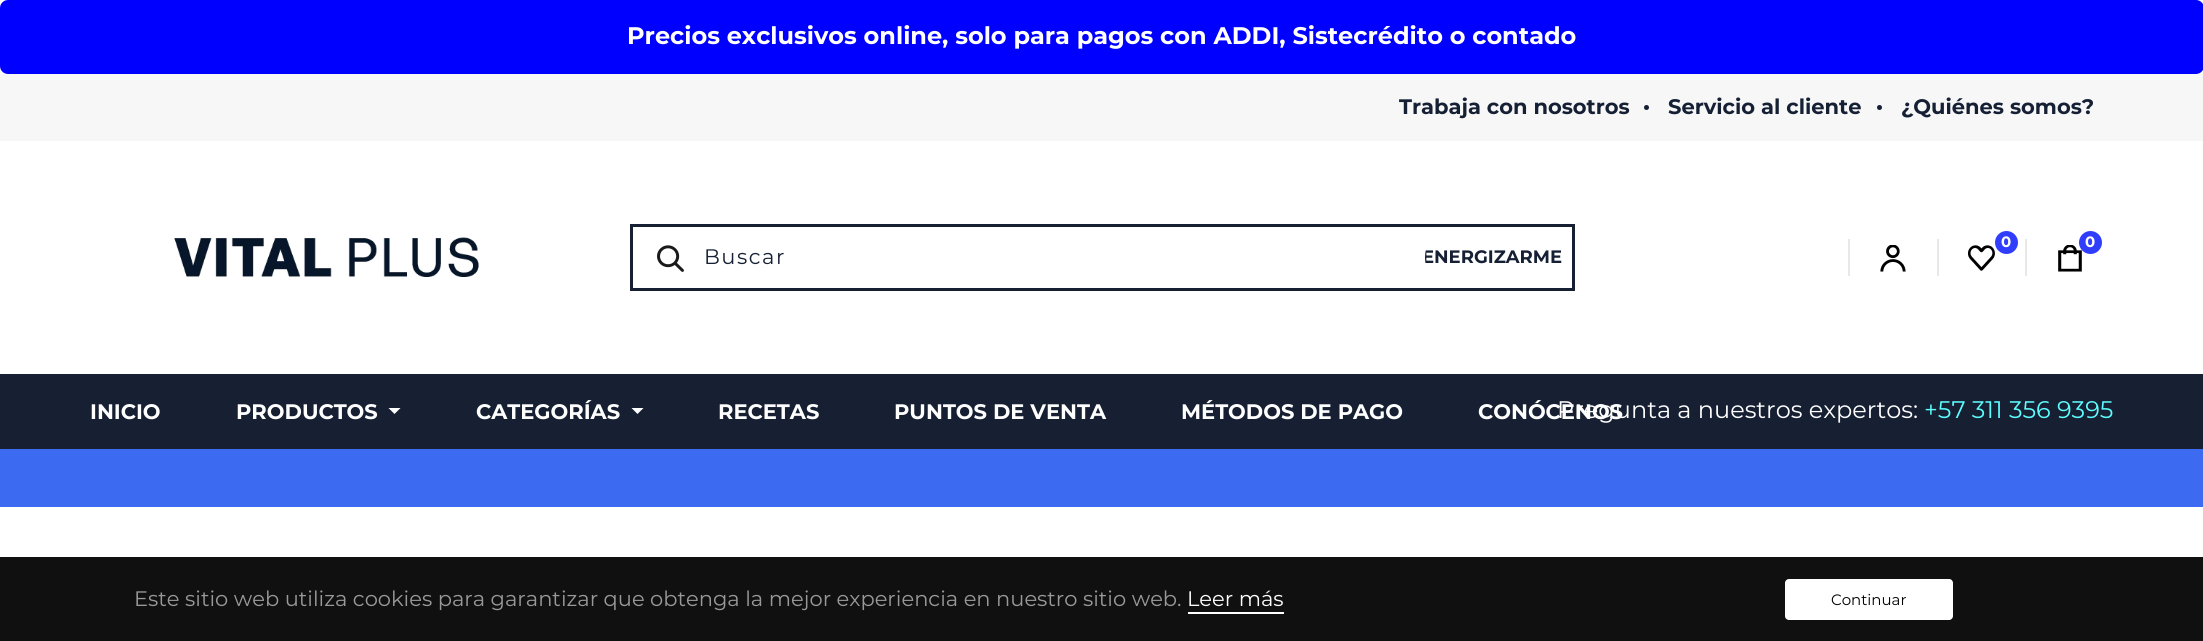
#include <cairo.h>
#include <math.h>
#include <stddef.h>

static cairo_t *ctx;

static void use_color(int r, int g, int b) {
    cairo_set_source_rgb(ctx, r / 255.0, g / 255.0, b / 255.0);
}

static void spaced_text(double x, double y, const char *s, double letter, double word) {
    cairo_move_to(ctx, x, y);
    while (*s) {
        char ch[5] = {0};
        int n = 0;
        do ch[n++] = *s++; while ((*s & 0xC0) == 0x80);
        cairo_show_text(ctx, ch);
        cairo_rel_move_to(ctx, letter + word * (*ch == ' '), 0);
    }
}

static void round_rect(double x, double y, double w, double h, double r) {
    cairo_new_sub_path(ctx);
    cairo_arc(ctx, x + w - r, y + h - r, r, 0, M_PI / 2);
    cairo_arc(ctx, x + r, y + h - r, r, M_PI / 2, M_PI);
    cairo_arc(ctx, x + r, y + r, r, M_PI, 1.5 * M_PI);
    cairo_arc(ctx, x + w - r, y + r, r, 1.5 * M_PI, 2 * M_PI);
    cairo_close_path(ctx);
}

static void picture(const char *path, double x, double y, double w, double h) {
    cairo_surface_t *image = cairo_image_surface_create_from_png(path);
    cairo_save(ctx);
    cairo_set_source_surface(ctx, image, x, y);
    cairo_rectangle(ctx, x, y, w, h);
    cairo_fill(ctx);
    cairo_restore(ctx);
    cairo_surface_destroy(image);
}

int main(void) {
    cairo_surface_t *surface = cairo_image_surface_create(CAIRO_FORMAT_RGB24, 2203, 641);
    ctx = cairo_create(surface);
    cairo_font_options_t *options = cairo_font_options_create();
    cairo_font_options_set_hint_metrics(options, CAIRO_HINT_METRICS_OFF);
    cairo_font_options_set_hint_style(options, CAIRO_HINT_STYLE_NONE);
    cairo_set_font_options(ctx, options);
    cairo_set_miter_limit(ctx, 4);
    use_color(255, 255, 255);
    cairo_paint(ctx);
    use_color(0, 0, 255);
    round_rect(0, 0, 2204, 74, 8);
    cairo_fill(ctx);
    cairo_select_font_face(ctx, "Montserrat", CAIRO_FONT_SLANT_NORMAL, CAIRO_FONT_WEIGHT_BOLD);
    cairo_set_font_size(ctx, 24);
    use_color(255, 255, 255);
    cairo_move_to(ctx, 627, 44);
    cairo_show_text(ctx, "Precios exclusivos online, solo para pagos con ADDI, Sistecrédito o contado");
    use_color(247, 247, 247);
    cairo_rectangle(ctx, 0, 74, 2203, 67);
    cairo_fill(ctx);
    cairo_set_font_size(ctx, 21);
    use_color(22, 32, 52);
    cairo_move_to(ctx, 1399, 114);
    cairo_show_text(ctx, "Trabaja con nosotros");
    cairo_new_path(ctx);
    cairo_arc(ctx, 1646.5, 107.5, 2.5, 0, 2 * M_PI);
    cairo_fill(ctx);
    cairo_move_to(ctx, 1668, 114);
    cairo_show_text(ctx, "Servicio al cliente");
    cairo_new_path(ctx);
    cairo_arc(ctx, 1879.5, 107.5, 2.5, 0, 2 * M_PI);
    cairo_fill(ctx);
    cairo_move_to(ctx, 1901, 114);
    cairo_show_text(ctx, "¿Quiénes somos?");
    picture("img1.png", 174, 237, 305, 40);
    picture("img2.png", 657, 245, 27, 27);
    cairo_rectangle(ctx, 631.5, 225.5, 942, 64);
    use_color(22, 32, 50);
    cairo_set_line_width(ctx, 3);
    cairo_stroke(ctx);
    cairo_select_font_face(ctx, "Montserrat", CAIRO_FONT_SLANT_NORMAL, CAIRO_FONT_WEIGHT_NORMAL);
    use_color(22, 32, 52);
    spaced_text(704, 264, "Buscar", 1.5, 0);
    cairo_save(ctx);
    round_rect(1425, 224, 150, 67, 33.5);
    cairo_clip(ctx);
    cairo_select_font_face(ctx, "Montserrat", CAIRO_FONT_SLANT_NORMAL, CAIRO_FONT_WEIGHT_BOLD);
    cairo_set_font_size(ctx, 18);
    cairo_move_to(ctx, 1422, 263);
    cairo_show_text(ctx, "ENERGIZARME");
    cairo_restore(ctx);
    use_color(232, 232, 233);
    cairo_rectangle(ctx, 1848, 239, 2, 37);
    cairo_fill(ctx);
    picture("img3.png", 1880, 245, 26, 27);
    cairo_rectangle(ctx, 1937, 239, 2, 37);
    cairo_fill(ctx);
    use_color(48, 61, 252);
    cairo_arc(ctx, 2006.5, 242.5, 11.5, 0, 2 * M_PI);
    cairo_fill(ctx);
    cairo_select_font_face(ctx, "Montserrat", CAIRO_FONT_SLANT_NORMAL, CAIRO_FONT_WEIGHT_BOLD);
    cairo_set_font_size(ctx, 15);
    use_color(255, 255, 255);
    cairo_move_to(ctx, 2001, 247);
    cairo_show_text(ctx, "0");
    picture("img4.png", 1968, 245, 27, 26);
    use_color(232, 232, 233);
    cairo_rectangle(ctx, 2025, 239, 2, 37);
    cairo_fill(ctx);
    picture("img5.png", 2058, 245, 24, 27);
    use_color(48, 61, 252);
    cairo_arc(ctx, 2090.5, 242.5, 11.5, 0, 2 * M_PI);
    cairo_fill(ctx);
    use_color(255, 255, 255);
    cairo_move_to(ctx, 2085, 247);
    cairo_show_text(ctx, "0");
    use_color(22, 32, 50);
    cairo_rectangle(ctx, 0, 374, 2203, 75);
    cairo_fill(ctx);
    cairo_set_font_size(ctx, 21);
    use_color(255, 255, 255);
    cairo_move_to(ctx, 90, 419);
    cairo_show_text(ctx, "INICIO");
    cairo_move_to(ctx, 236, 419);
    cairo_show_text(ctx, "PRODUCTOS");
    cairo_new_path(ctx);
    cairo_move_to(ctx, 388.5, 408);
    cairo_line_to(ctx, 400.5, 408);
    cairo_line_to(ctx, 394.5, 414);
    cairo_close_path(ctx);
    cairo_fill(ctx);
    cairo_move_to(ctx, 476, 419);
    cairo_show_text(ctx, "CATEGORÍAS");
    cairo_new_path(ctx);
    cairo_move_to(ctx, 631.5, 408);
    cairo_line_to(ctx, 643.5, 408);
    cairo_line_to(ctx, 637.5, 414);
    cairo_close_path(ctx);
    cairo_fill(ctx);
    cairo_move_to(ctx, 718, 419);
    cairo_show_text(ctx, "RECETAS");
    cairo_move_to(ctx, 894, 419);
    cairo_show_text(ctx, "PUNTOS DE VENTA");
    cairo_move_to(ctx, 1181, 419);
    cairo_show_text(ctx, "MÉTODOS DE PAGO");
    cairo_move_to(ctx, 1478, 419);
    cairo_show_text(ctx, "CONÓCENOS");
    cairo_select_font_face(ctx, "Montserrat", CAIRO_FONT_SLANT_NORMAL, CAIRO_FONT_WEIGHT_NORMAL);
    cairo_set_font_size(ctx, 24);
    cairo_move_to(ctx, 1557, 418);
    cairo_show_text(ctx, "Pregunta a nuestros expertos:");
    use_color(93, 253, 255);
    cairo_move_to(ctx, 1924, 418);
    cairo_show_text(ctx, "+57 311 356 9395");
    use_color(60, 106, 240);
    cairo_rectangle(ctx, 0, 449, 2203, 58);
    cairo_fill(ctx);
    use_color(16, 16, 16);
    cairo_rectangle(ctx, 0, 557, 2203, 84);
    cairo_fill(ctx);
    cairo_set_font_size(ctx, 21);
    use_color(153, 153, 153);
    cairo_move_to(ctx, 134, 606);
    cairo_show_text(ctx, "Este sitio web utiliza cookies para garantizar que obtenga la mejor experiencia en nuestro sitio web.");
    use_color(255, 255, 255);
    cairo_move_to(ctx, 1187, 606);
    cairo_show_text(ctx, "Leer más");
    cairo_rectangle(ctx, 1188, 612, 96, 2);
    cairo_fill(ctx);
    round_rect(1785, 579, 168, 41, 4);
    cairo_fill(ctx);
    cairo_set_font_size(ctx, 15);
    use_color(0, 0, 0);
    cairo_move_to(ctx, 1831, 605);
    cairo_show_text(ctx, "Continuar");
    cairo_surface_write_to_png(surface, "result.png");
    cairo_font_options_destroy(options);
    cairo_destroy(ctx);
    cairo_surface_destroy(surface);
    return 0;
}
